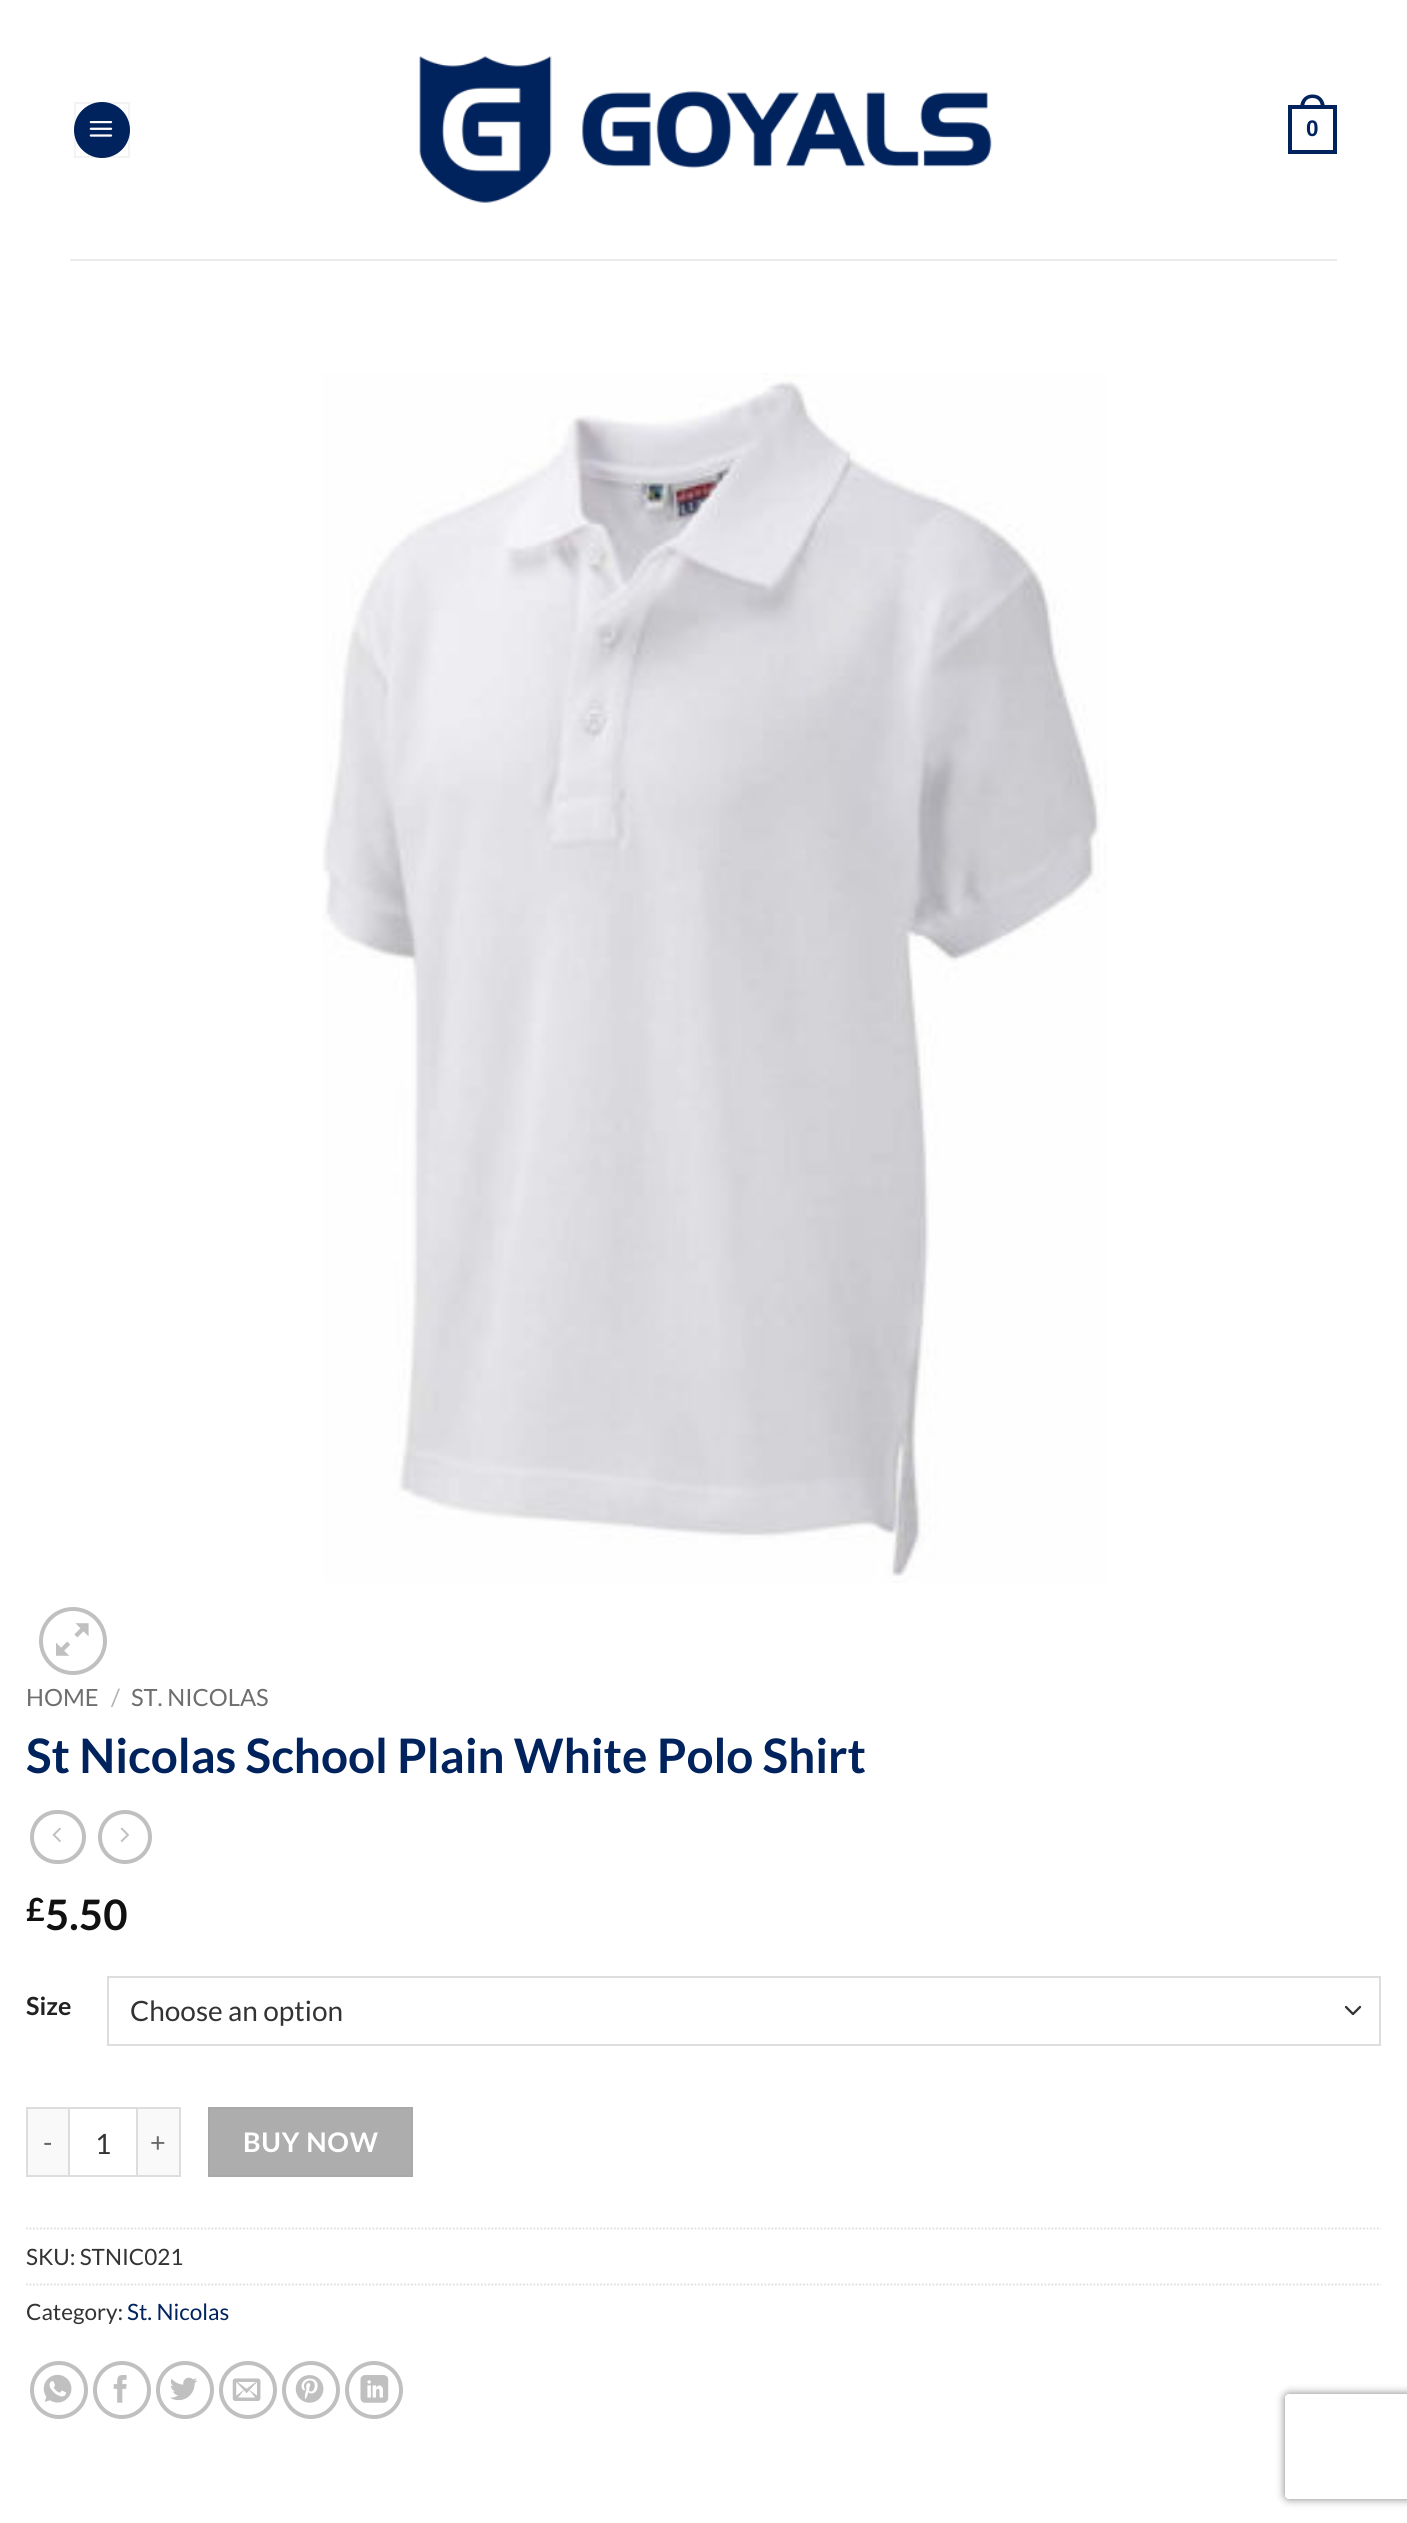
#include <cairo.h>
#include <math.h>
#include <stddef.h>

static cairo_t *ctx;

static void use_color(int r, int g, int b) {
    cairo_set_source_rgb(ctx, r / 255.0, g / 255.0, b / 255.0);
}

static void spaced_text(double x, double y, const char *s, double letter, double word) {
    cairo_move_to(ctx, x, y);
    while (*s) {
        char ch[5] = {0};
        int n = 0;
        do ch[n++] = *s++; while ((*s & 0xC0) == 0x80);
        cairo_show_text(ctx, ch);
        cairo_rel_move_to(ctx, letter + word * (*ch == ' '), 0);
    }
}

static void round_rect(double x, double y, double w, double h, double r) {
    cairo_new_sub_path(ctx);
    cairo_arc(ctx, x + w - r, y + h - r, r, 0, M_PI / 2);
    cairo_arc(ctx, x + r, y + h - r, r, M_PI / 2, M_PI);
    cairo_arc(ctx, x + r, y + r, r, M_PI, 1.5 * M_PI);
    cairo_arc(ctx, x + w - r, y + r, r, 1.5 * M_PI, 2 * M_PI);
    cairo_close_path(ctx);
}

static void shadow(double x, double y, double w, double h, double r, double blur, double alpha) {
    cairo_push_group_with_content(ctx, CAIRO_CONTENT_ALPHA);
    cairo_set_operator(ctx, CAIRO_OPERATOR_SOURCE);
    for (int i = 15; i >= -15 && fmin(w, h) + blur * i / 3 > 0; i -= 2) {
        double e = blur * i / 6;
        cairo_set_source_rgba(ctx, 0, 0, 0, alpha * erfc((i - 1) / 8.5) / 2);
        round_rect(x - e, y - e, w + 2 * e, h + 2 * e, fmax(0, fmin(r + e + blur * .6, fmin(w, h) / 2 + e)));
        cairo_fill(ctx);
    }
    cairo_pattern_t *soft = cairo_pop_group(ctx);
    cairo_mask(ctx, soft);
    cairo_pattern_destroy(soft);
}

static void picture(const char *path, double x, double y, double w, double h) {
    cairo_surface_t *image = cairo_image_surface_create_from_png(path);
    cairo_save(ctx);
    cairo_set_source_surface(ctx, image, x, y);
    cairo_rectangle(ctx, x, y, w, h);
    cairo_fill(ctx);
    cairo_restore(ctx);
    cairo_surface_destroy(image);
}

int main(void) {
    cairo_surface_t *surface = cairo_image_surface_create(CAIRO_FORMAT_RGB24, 1407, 2523);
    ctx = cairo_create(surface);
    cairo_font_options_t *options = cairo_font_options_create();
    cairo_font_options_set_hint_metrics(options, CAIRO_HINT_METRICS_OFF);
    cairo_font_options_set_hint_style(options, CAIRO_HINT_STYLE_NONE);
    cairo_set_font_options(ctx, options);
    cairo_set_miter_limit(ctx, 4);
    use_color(255, 255, 255);
    cairo_paint(ctx);
    use_color(0, 35, 94);
    cairo_arc(ctx, 102, 130, 28, 0, 2 * M_PI);
    cairo_fill(ctx);
    cairo_rectangle(ctx, 75, 103, 54, 54);
    cairo_set_source_rgba(ctx, 0, 0, 0, 0.05);
    cairo_stroke(ctx);
    picture("img1.png", 89, 121, 24, 16);
    picture("img2.png", 419, 56, 573, 147);
    cairo_rectangle(ctx, 1290, 107, 45, 45);
    use_color(0, 35, 94);
    cairo_set_line_width(ctx, 4);
    cairo_stroke(ctx);
    cairo_set_fill_rule(ctx, CAIRO_FILL_RULE_EVEN_ODD);
    cairo_new_path(ctx);
    cairo_move_to(ctx, 1312.5, 94.5);
    cairo_curve_to(ctx, 1321, 94.5, 1325, 101, 1325, 108.5);
    cairo_line_to(ctx, 1300, 108.5);
    cairo_curve_to(ctx, 1300, 101, 1304, 94.5, 1312.5, 94.5);
    cairo_close_path(ctx);
    cairo_move_to(ctx, 1312.5, 98);
    cairo_curve_to(ctx, 1319, 98, 1321, 103, 1321, 108.5);
    cairo_line_to(ctx, 1304, 108.5);
    cairo_curve_to(ctx, 1304, 103, 1306, 98, 1312.5, 98);
    cairo_close_path(ctx);
    cairo_fill(ctx);
    cairo_select_font_face(ctx, "Liberation Sans", CAIRO_FONT_SLANT_NORMAL, CAIRO_FONT_WEIGHT_BOLD);
    cairo_set_font_size(ctx, 22.5);
    cairo_move_to(ctx, 1306, 136);
    cairo_show_text(ctx, "0");
    use_color(235, 235, 235);
    cairo_rectangle(ctx, 70, 259, 1267, 2);
    cairo_fill(ctx);
    picture("img3.png", 322, 373, 785, 1210);
    cairo_arc(ctx, 73, 1641, 32, 0, 2 * M_PI);
    use_color(192, 192, 192);
    cairo_stroke(ctx);
    picture("img4.png", 56, 1623, 33, 33);
    cairo_select_font_face(ctx, "Lato", CAIRO_FONT_SLANT_NORMAL, CAIRO_FONT_WEIGHT_NORMAL);
    cairo_set_font_size(ctx, 23.75);
    use_color(110, 110, 110);
    cairo_move_to(ctx, 26, 1706);
    cairo_show_text(ctx, "HOME");
    use_color(178, 178, 178);
    cairo_move_to(ctx, 111, 1706);
    cairo_show_text(ctx, "/");
    use_color(110, 110, 110);
    cairo_move_to(ctx, 131, 1706);
    cairo_show_text(ctx, "ST. NICOLAS");
    cairo_select_font_face(ctx, "Lato", CAIRO_FONT_SLANT_NORMAL, CAIRO_FONT_WEIGHT_BOLD);
    cairo_set_font_size(ctx, 47.6);
    use_color(0, 35, 94);
    cairo_move_to(ctx, 26, 1773);
    cairo_show_text(ctx, "St Nicolas School Plain White Polo Shirt");
    round_rect(32, 1812, 52, 50, 25);
    use_color(192, 192, 192);
    cairo_stroke(ctx);
    picture("img5.png", 52, 1827, 9, 15);
    cairo_arc(ctx, 125, 1837, 25, 0, 2 * M_PI);
    cairo_stroke(ctx);
    picture("img6.png", 120, 1827, 9, 15);
    cairo_set_font_size(ctx, 32);
    use_color(17, 17, 17);
    cairo_move_to(ctx, 26, 1921);
    cairo_show_text(ctx, "£");
    cairo_set_font_size(ctx, 42);
    cairo_move_to(ctx, 45, 1930);
    cairo_show_text(ctx, "5.50");
    cairo_set_font_size(ctx, 25);
    use_color(34, 34, 34);
    cairo_move_to(ctx, 26, 2015);
    cairo_show_text(ctx, "Size");
    cairo_new_path(ctx);
    cairo_move_to(ctx, 1346, 2007);
    cairo_line_to(ctx, 1353, 2014);
    cairo_line_to(ctx, 1360, 2007);
    use_color(51, 51, 51);
    cairo_set_line_width(ctx, 2.3);
    cairo_set_line_cap(ctx, CAIRO_LINE_CAP_ROUND);
    cairo_set_line_join(ctx, CAIRO_LINE_JOIN_ROUND);
    cairo_stroke(ctx);
    cairo_rectangle(ctx, 108, 1977, 1272, 68);
    use_color(221, 221, 221);
    cairo_set_line_width(ctx, 2);
    cairo_set_line_cap(ctx, CAIRO_LINE_CAP_BUTT);
    cairo_set_line_join(ctx, CAIRO_LINE_JOIN_MITER);
    cairo_stroke(ctx);
    cairo_select_font_face(ctx, "Lato", CAIRO_FONT_SLANT_NORMAL, CAIRO_FONT_WEIGHT_NORMAL);
    cairo_set_font_size(ctx, 28);
    use_color(51, 51, 51);
    cairo_move_to(ctx, 130, 2021);
    cairo_show_text(ctx, "Choose an option");
    use_color(249, 249, 249);
    cairo_rectangle(ctx, 28, 2109, 40, 66);
    cairo_fill(ctx);
    use_color(221, 221, 221);
    cairo_rectangle(ctx, 26, 2107, 42, 2);
    cairo_fill(ctx);
    cairo_rectangle(ctx, 26, 2175, 42, 2);
    cairo_fill(ctx);
    cairo_rectangle(ctx, 26, 2107, 2, 70);
    cairo_fill(ctx);
    cairo_set_font_size(ctx, 27);
    use_color(102, 102, 102);
    spaced_text(43, 2152, "-", 0.75, 0);
    cairo_rectangle(ctx, 69, 2108, 68, 68);
    use_color(221, 221, 221);
    cairo_stroke(ctx);
    cairo_set_font_size(ctx, 28);
    use_color(51, 51, 51);
    cairo_move_to(ctx, 95, 2154);
    cairo_show_text(ctx, "1");
    use_color(249, 249, 249);
    cairo_rectangle(ctx, 138, 2109, 41, 66);
    cairo_fill(ctx);
    use_color(221, 221, 221);
    cairo_rectangle(ctx, 138, 2107, 42, 2);
    cairo_fill(ctx);
    cairo_rectangle(ctx, 179, 2107, 2, 70);
    cairo_fill(ctx);
    cairo_rectangle(ctx, 138, 2175, 42, 2);
    cairo_fill(ctx);
    cairo_set_font_size(ctx, 27);
    use_color(102, 102, 102);
    spaced_text(150, 2152, "+", 0.75, 0);
    use_color(173, 173, 173);
    cairo_rectangle(ctx, 209, 2108, 203, 68);
    cairo_fill_preserve(ctx);
    use_color(169, 169, 169);
    cairo_stroke(ctx);
    cairo_select_font_face(ctx, "Lato", CAIRO_FONT_SLANT_NORMAL, CAIRO_FONT_WEIGHT_BOLD);
    use_color(255, 255, 255);
    spaced_text(243, 2152, "BUY NOW", 0.75, 0);
    cairo_new_path(ctx);
    cairo_move_to(ctx, 26, 2228.5);
    cairo_line_to(ctx, 1381, 2228.5);
    use_color(221, 221, 221);
    cairo_set_line_width(ctx, 1.8);
    cairo_set_dash(ctx, (double[]){1.75, 1.75}, 2, 0);
    cairo_stroke(ctx);
    cairo_select_font_face(ctx, "Lato", CAIRO_FONT_SLANT_NORMAL, CAIRO_FONT_WEIGHT_NORMAL);
    cairo_set_font_size(ctx, 22.5);
    use_color(51, 51, 51);
    cairo_move_to(ctx, 26, 2265);
    cairo_show_text(ctx, "SKU: STNIC021");
    cairo_new_path(ctx);
    cairo_move_to(ctx, 26, 2284.5);
    cairo_line_to(ctx, 1381, 2284.5);
    use_color(221, 221, 221);
    cairo_stroke(ctx);
    use_color(51, 51, 51);
    cairo_move_to(ctx, 26, 2320);
    cairo_show_text(ctx, "Category:");
    use_color(0, 35, 94);
    cairo_move_to(ctx, 127, 2320);
    cairo_show_text(ctx, "St. Nicolas");
    cairo_new_path(ctx);
    cairo_arc(ctx, 59, 2390, 27, 0, 2 * M_PI);
    use_color(192, 192, 192);
    cairo_set_line_width(ctx, 4);
    cairo_set_dash(ctx, NULL, 0, 0);
    cairo_stroke(ctx);
    picture("img7.png", 43, 2374, 29, 29);
    cairo_arc(ctx, 122, 2390, 27, 0, 2 * M_PI);
    cairo_stroke(ctx);
    picture("img8.png", 113, 2375, 14, 28);
    cairo_arc(ctx, 185, 2390, 27, 0, 2 * M_PI);
    cairo_stroke(ctx);
    picture("img9.png", 170, 2377, 28, 24);
    cairo_arc(ctx, 248, 2390, 27, 0, 2 * M_PI);
    cairo_stroke(ctx);
    picture("img10.png", 232, 2378, 29, 23);
    cairo_arc(ctx, 311, 2390, 27, 0, 2 * M_PI);
    cairo_stroke(ctx);
    picture("img11.png", 295, 2375, 29, 28);
    cairo_arc(ctx, 374, 2390, 27, 0, 2 * M_PI);
    cairo_stroke(ctx);
    picture("img12.png", 360, 2375, 29, 28);
    cairo_save(ctx);
    cairo_new_path(ctx);
    cairo_move_to(ctx, 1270, 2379);
    cairo_line_to(ctx, 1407, 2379);
    cairo_line_to(ctx, 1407, 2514);
    cairo_line_to(ctx, 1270, 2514);
    cairo_close_path(ctx);
    cairo_move_to(ctx, 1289, 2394);
    cairo_line_to(ctx, 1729, 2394);
    cairo_curve_to(ctx, 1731, 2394, 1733, 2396, 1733, 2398);
    cairo_line_to(ctx, 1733, 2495);
    cairo_curve_to(ctx, 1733, 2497, 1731, 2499, 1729, 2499);
    cairo_line_to(ctx, 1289, 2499);
    cairo_curve_to(ctx, 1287, 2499, 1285, 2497, 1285, 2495);
    cairo_line_to(ctx, 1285, 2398);
    cairo_curve_to(ctx, 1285, 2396, 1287, 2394, 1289, 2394);
    cairo_close_path(ctx);
    cairo_clip(ctx);
    use_color(128, 128, 128);
    shadow(1285, 2394, 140, 105, 4, 4.5, 1);
    cairo_restore(ctx);
    cairo_surface_write_to_png(surface, "result.png");
    cairo_font_options_destroy(options);
    cairo_destroy(ctx);
    cairo_surface_destroy(surface);
    return 0;
}
